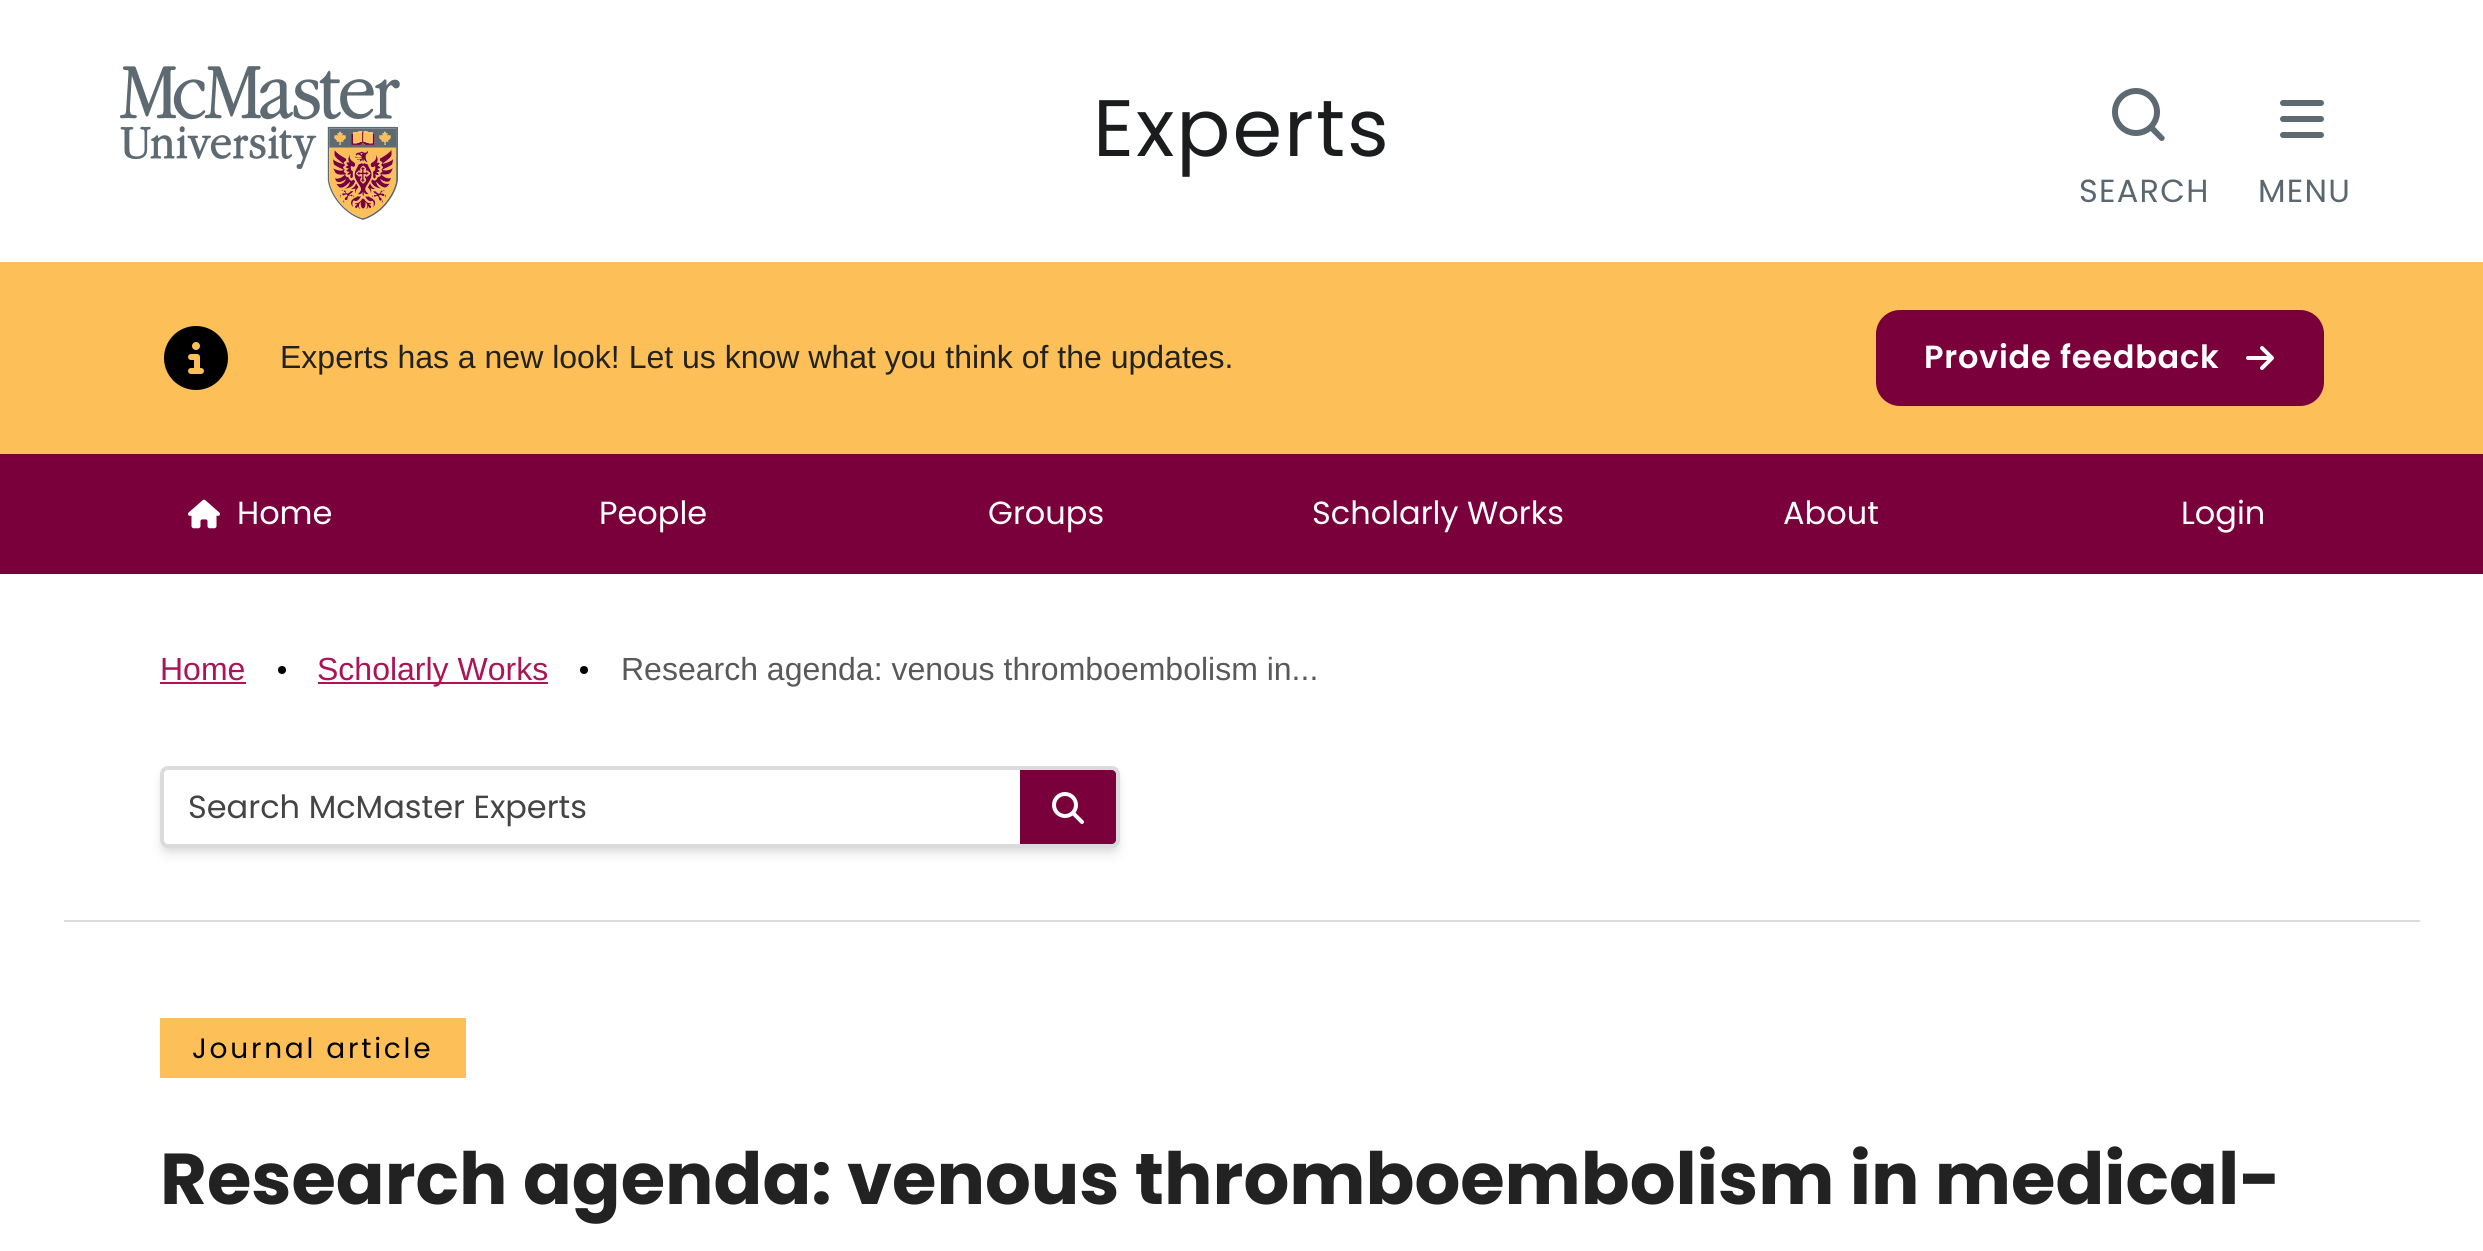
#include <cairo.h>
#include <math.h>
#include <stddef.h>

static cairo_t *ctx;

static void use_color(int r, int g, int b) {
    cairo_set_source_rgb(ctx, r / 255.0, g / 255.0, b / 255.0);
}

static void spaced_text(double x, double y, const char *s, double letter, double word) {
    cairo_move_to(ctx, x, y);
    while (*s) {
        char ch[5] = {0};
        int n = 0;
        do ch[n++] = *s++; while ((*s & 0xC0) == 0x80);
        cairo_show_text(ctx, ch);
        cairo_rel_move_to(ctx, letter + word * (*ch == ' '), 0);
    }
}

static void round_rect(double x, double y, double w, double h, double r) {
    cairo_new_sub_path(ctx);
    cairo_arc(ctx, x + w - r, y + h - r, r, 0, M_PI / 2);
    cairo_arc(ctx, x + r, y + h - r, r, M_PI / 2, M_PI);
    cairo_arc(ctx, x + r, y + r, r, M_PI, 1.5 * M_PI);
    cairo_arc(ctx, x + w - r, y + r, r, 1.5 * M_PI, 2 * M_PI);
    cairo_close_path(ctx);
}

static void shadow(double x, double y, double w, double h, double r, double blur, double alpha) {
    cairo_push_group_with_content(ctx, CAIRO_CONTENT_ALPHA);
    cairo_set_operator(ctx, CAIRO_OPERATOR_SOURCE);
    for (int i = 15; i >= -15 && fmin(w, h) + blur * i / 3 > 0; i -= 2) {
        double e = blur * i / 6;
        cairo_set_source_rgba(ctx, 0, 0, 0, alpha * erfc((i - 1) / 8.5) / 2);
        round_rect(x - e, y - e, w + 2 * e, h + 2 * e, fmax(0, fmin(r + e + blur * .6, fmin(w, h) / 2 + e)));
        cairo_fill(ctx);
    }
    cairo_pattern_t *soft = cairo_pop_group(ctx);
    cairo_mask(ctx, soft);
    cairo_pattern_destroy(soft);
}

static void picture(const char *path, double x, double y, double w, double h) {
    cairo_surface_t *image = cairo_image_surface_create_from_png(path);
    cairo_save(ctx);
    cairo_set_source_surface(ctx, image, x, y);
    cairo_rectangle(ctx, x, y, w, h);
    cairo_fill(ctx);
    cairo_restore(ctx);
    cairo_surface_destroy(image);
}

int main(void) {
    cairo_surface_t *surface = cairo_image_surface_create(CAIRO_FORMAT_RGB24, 2483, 1251);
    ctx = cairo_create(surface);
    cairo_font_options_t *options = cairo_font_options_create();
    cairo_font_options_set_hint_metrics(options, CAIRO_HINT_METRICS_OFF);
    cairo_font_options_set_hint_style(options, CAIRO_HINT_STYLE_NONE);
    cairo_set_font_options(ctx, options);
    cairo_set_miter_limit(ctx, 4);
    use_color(255, 255, 255);
    cairo_paint(ctx);
    picture("img1.png", 120, 66, 280, 154);
    cairo_select_font_face(ctx, "Poppins", CAIRO_FONT_SLANT_NORMAL, CAIRO_FONT_WEIGHT_NORMAL);
    cairo_set_font_size(ctx, 80);
    use_color(26, 28, 29);
    spaced_text(1093, 156, "Experts", 2, 0);
    cairo_new_path(ctx);
    cairo_arc(ctx, 2136, 112, 21, 0, 2 * M_PI);
    use_color(94, 106, 113);
    cairo_set_line_width(ctx, 6);
    cairo_stroke(ctx);
    cairo_new_path(ctx);
    cairo_move_to(ctx, 2154, 126);
    cairo_line_to(ctx, 2164.5, 137);
    cairo_curve_to(ctx, 2165.5, 140, 2162, 142.5, 2159.5, 140);
    cairo_line_to(ctx, 2149, 129.5);
    cairo_curve_to(ctx, 2147.5, 127, 2151.5, 123.5, 2154, 126);
    cairo_close_path(ctx);
    cairo_fill(ctx);
    cairo_set_font_size(ctx, 32);
    use_color(91, 103, 112);
    spaced_text(2079, 202, "SEARCH", 1.25, 0);
    use_color(94, 106, 113);
    round_rect(2280, 116, 44, 6, 3);
    cairo_fill(ctx);
    round_rect(2280, 100, 44, 6, 3);
    cairo_fill(ctx);
    round_rect(2280, 132, 44, 6, 3);
    cairo_fill(ctx);
    use_color(91, 103, 112);
    spaced_text(2258, 202, "MENU", 1.25, 0);
    use_color(253, 191, 87);
    cairo_rectangle(ctx, 0, 262, 2483, 192);
    cairo_fill(ctx);
    picture("img2.png", 164, 326, 64, 64);
    cairo_select_font_face(ctx, "Liberation Sans", CAIRO_FONT_SLANT_NORMAL, CAIRO_FONT_WEIGHT_NORMAL);
    use_color(34, 34, 34);
    cairo_move_to(ctx, 280, 368);
    cairo_show_text(ctx, "Experts has a new look! Let us know what you think of the updates.");
    use_color(122, 0, 60);
    round_rect(1876, 310, 448, 96, 24);
    cairo_fill(ctx);
    cairo_select_font_face(ctx, "Poppins SemiBold", CAIRO_FONT_SLANT_NORMAL, CAIRO_FONT_WEIGHT_NORMAL);
    use_color(255, 255, 255);
    spaced_text(1924, 368, "Provide feedback", 0.75, 0);
    picture("img3.png", 2246, 346, 28, 24);
    use_color(122, 0, 60);
    cairo_rectangle(ctx, 0, 454, 2483, 120);
    cairo_fill(ctx);
    picture("img4.png", 188, 499, 32, 30);
    cairo_select_font_face(ctx, "Poppins", CAIRO_FONT_SLANT_NORMAL, CAIRO_FONT_WEIGHT_NORMAL);
    use_color(255, 255, 255);
    cairo_move_to(ctx, 237, 524);
    cairo_show_text(ctx, "Home");
    cairo_move_to(ctx, 599, 524);
    cairo_show_text(ctx, "People");
    cairo_move_to(ctx, 988, 524);
    cairo_show_text(ctx, "Groups");
    cairo_move_to(ctx, 1312, 524);
    cairo_show_text(ctx, "Scholarly Works");
    cairo_move_to(ctx, 1783, 524);
    cairo_show_text(ctx, "About");
    cairo_move_to(ctx, 2181, 524);
    cairo_show_text(ctx, "Login");
    cairo_select_font_face(ctx, "Liberation Sans", CAIRO_FONT_SLANT_NORMAL, CAIRO_FONT_WEIGHT_NORMAL);
    use_color(172, 20, 85);
    cairo_move_to(ctx, 160, 680);
    cairo_show_text(ctx, "Home");
    cairo_rectangle(ctx, 160, 682, 86, 2);
    cairo_fill(ctx);
    use_color(0, 0, 0);
    cairo_arc(ctx, 282, 670, 4, 0, 2 * M_PI);
    cairo_fill(ctx);
    use_color(172, 20, 85);
    cairo_rectangle(ctx, 318, 682, 230, 2);
    cairo_fill(ctx);
    cairo_move_to(ctx, 317, 680);
    cairo_show_text(ctx, "Scholarly Works");
    use_color(0, 0, 0);
    cairo_new_path(ctx);
    cairo_arc(ctx, 584, 670, 4, 0, 2 * M_PI);
    cairo_fill(ctx);
    use_color(89, 89, 89);
    cairo_move_to(ctx, 621, 680);
    cairo_show_text(ctx, "Research agenda: venous thromboembolism in...");
    use_color(0, 0, 0);
    shadow(164, 774, 952, 74, 4, 4, 0.1);
    shadow(162, 776, 956, 78, 6, 6, 0.1);
    use_color(255, 255, 255);
    round_rect(162, 768, 956, 78, 6);
    cairo_fill_preserve(ctx);
    use_color(219, 219, 221);
    cairo_set_line_width(ctx, 4);
    cairo_stroke(ctx);
    cairo_select_font_face(ctx, "Poppins", CAIRO_FONT_SLANT_NORMAL, CAIRO_FONT_WEIGHT_NORMAL);
    use_color(68, 68, 68);
    cairo_move_to(ctx, 188, 818);
    cairo_show_text(ctx, "Search McMaster Experts");
    use_color(122, 0, 60);
    cairo_new_path(ctx);
    cairo_move_to(ctx, 1020, 770);
    cairo_line_to(ctx, 1112, 770);
    cairo_curve_to(ctx, 1114, 770, 1116, 772, 1116, 774);
    cairo_line_to(ctx, 1116, 840);
    cairo_curve_to(ctx, 1116, 842, 1114, 844, 1112, 844);
    cairo_line_to(ctx, 1020, 844);
    cairo_close_path(ctx);
    cairo_fill(ctx);
    picture("img5.png", 1052, 792, 32, 32);
    use_color(219, 219, 221);
    cairo_rectangle(ctx, 64, 920, 2356, 2);
    cairo_fill(ctx);
    use_color(253, 191, 87);
    cairo_rectangle(ctx, 160, 1018, 306, 60);
    cairo_fill(ctx);
    cairo_set_font_size(ctx, 28);
    use_color(0, 0, 0);
    spaced_text(192, 1058, "Journal article", 2.75, 0);
    cairo_select_font_face(ctx, "Poppins", CAIRO_FONT_SLANT_NORMAL, CAIRO_FONT_WEIGHT_BOLD);
    cairo_set_font_size(ctx, 72);
    use_color(34, 34, 34);
    cairo_move_to(ctx, 160, 1204);
    cairo_show_text(ctx, "Research agenda: venous thromboembolism in medical-");
    cairo_surface_write_to_png(surface, "result.png");
    cairo_font_options_destroy(options);
    cairo_destroy(ctx);
    cairo_surface_destroy(surface);
    return 0;
}
